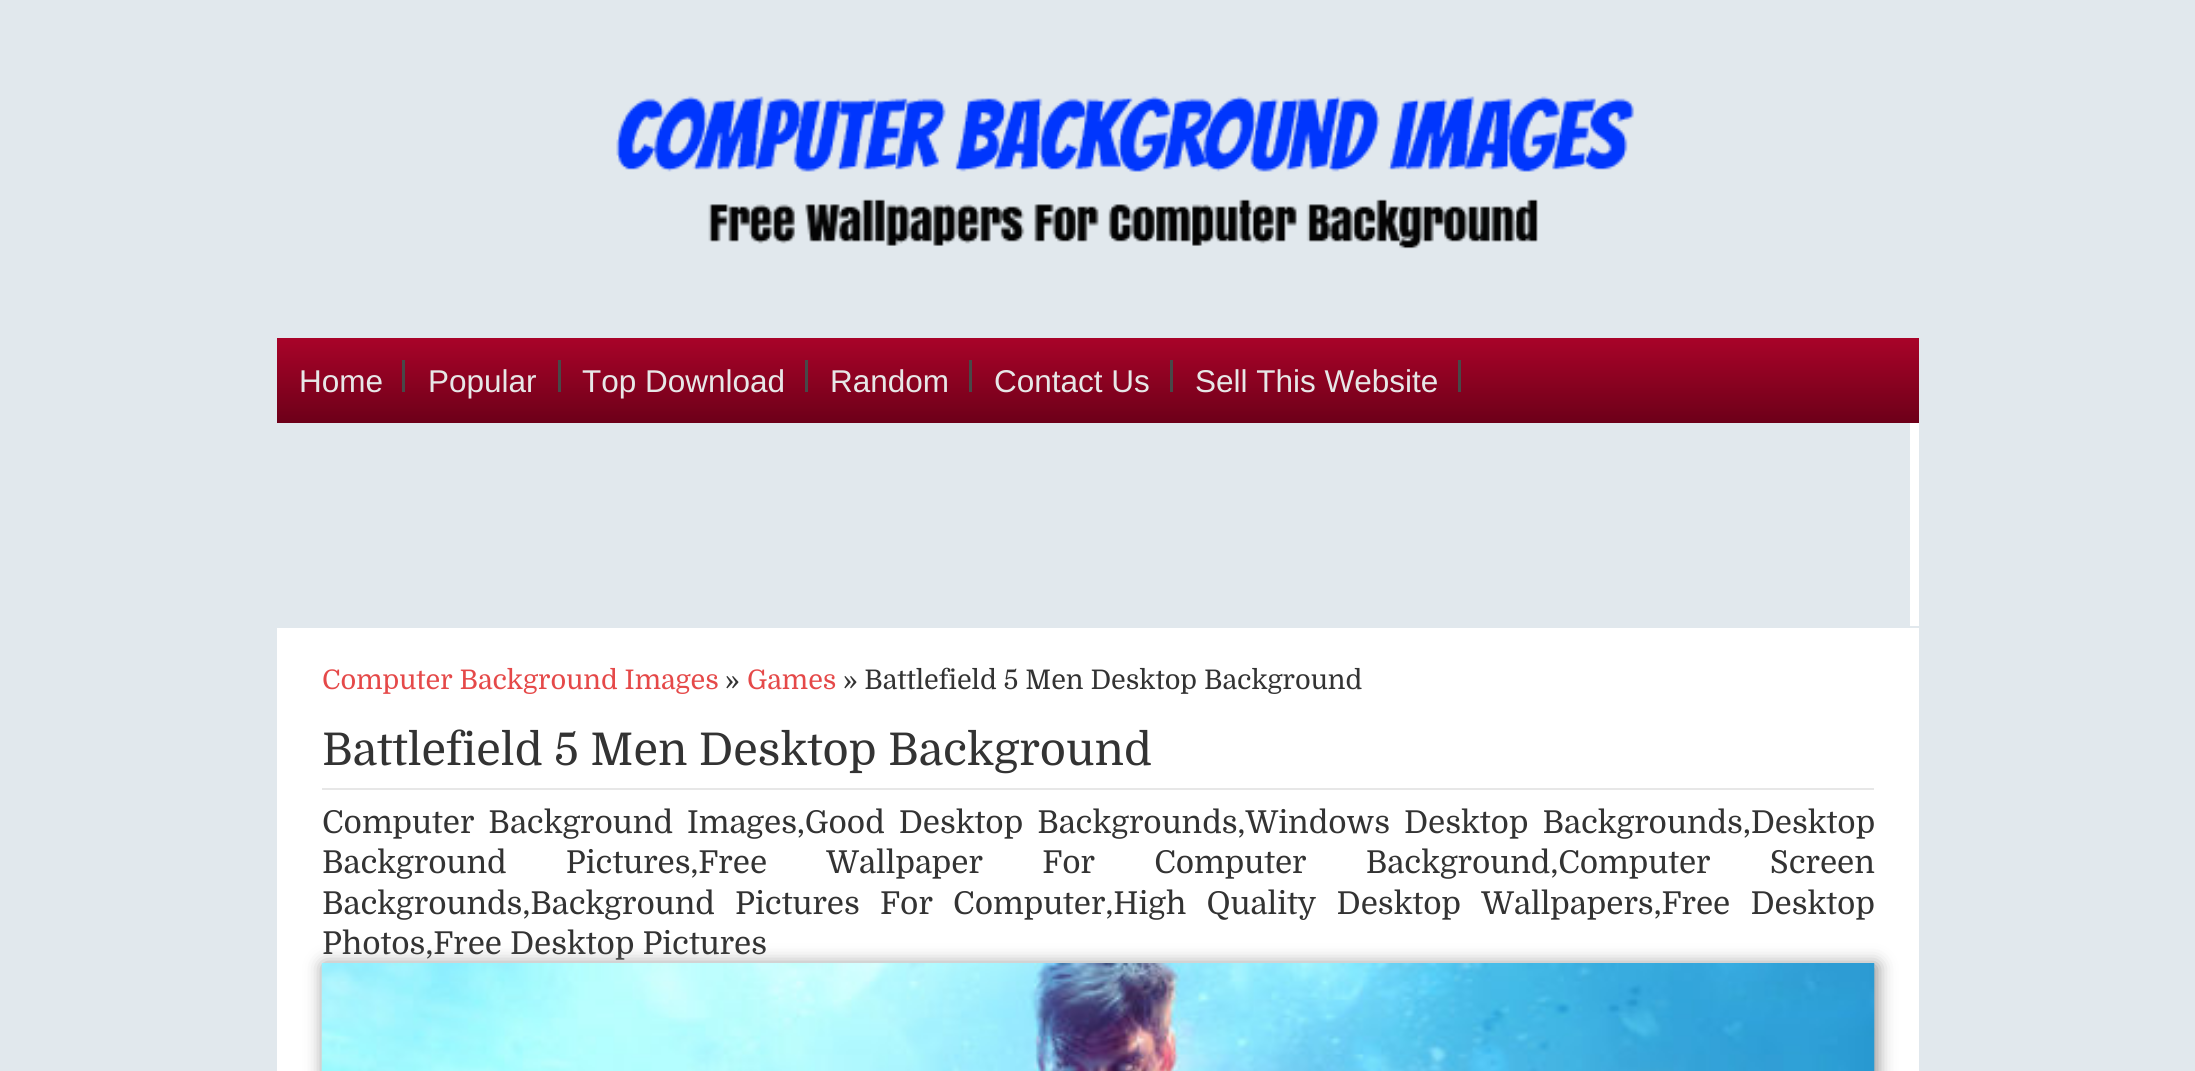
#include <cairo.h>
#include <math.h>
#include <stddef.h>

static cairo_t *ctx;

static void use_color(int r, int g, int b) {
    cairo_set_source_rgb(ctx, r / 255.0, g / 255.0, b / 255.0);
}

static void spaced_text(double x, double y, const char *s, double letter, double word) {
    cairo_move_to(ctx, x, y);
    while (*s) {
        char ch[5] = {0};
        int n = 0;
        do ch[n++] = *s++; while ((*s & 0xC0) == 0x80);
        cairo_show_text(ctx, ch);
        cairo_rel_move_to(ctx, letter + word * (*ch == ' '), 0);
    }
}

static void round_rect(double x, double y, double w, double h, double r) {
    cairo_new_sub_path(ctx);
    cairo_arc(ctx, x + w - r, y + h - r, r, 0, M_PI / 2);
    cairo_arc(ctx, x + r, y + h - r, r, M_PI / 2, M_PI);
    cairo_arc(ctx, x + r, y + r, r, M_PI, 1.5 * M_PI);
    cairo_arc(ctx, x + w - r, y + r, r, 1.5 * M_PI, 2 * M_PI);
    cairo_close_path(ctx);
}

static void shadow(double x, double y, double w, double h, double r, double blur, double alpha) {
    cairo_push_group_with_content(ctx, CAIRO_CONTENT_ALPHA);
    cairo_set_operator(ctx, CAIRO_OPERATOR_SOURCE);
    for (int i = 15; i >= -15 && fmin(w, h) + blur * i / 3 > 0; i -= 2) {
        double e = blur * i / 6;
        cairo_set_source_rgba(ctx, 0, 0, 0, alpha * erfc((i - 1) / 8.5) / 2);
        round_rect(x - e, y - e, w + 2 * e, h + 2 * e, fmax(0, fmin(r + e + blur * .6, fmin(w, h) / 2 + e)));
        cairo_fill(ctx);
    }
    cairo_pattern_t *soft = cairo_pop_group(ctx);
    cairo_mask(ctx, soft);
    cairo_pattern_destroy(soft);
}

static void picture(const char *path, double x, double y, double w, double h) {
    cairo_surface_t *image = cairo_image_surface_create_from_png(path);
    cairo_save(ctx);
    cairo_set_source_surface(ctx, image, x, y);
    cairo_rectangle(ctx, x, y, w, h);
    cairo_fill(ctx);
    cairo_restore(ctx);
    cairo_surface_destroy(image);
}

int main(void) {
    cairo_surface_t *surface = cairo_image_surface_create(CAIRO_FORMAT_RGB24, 2195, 1071);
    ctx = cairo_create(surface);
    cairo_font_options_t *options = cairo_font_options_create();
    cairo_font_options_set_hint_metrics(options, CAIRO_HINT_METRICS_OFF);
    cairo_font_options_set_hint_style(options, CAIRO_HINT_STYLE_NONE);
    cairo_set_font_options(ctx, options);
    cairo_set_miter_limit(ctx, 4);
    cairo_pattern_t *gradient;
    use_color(225, 232, 237);
    cairo_paint(ctx);
    picture("img1.png", 616, 96, 1019, 153);
    gradient = cairo_pattern_create_linear(1098, 337, 1098, 423);
    cairo_pattern_add_color_stop_rgba(gradient, 0, 0.663, 0.012, 0.161, 1);
    cairo_pattern_add_color_stop_rgba(gradient, 0.44, 0.561, 0.008, 0.133, 1);
    cairo_pattern_add_color_stop_rgba(gradient, 1, 0.427, 0, 0.098, 1);
    cairo_set_source(ctx, gradient);
    cairo_pattern_destroy(gradient);
    cairo_rectangle(ctx, 277, 338, 1642, 85);
    cairo_fill(ctx);
    use_color(72, 72, 72);
    cairo_rectangle(ctx, 402, 360, 3, 32);
    cairo_fill(ctx);
    cairo_select_font_face(ctx, "Liberation Sans", CAIRO_FONT_SLANT_NORMAL, CAIRO_FONT_WEIGHT_NORMAL);
    cairo_set_font_size(ctx, 31.5);
    use_color(231, 231, 231);
    cairo_move_to(ctx, 299, 392);
    cairo_show_text(ctx, "Home");
    use_color(72, 72, 72);
    cairo_rectangle(ctx, 558, 360, 3, 32);
    cairo_fill(ctx);
    use_color(231, 231, 231);
    cairo_move_to(ctx, 428, 392);
    cairo_show_text(ctx, "Popular");
    use_color(72, 72, 72);
    cairo_rectangle(ctx, 805, 360, 3, 32);
    cairo_fill(ctx);
    use_color(231, 231, 231);
    cairo_move_to(ctx, 582, 392);
    cairo_show_text(ctx, "Top Download");
    use_color(72, 72, 72);
    cairo_rectangle(ctx, 969, 360, 3, 32);
    cairo_fill(ctx);
    use_color(231, 231, 231);
    cairo_move_to(ctx, 830, 392);
    cairo_show_text(ctx, "Random");
    use_color(72, 72, 72);
    cairo_rectangle(ctx, 1170, 360, 3, 32);
    cairo_fill(ctx);
    use_color(231, 231, 231);
    cairo_move_to(ctx, 994, 392);
    cairo_show_text(ctx, "Contact Us");
    use_color(72, 72, 72);
    cairo_rectangle(ctx, 1458, 360, 3, 32);
    cairo_fill(ctx);
    use_color(231, 231, 231);
    cairo_move_to(ctx, 1195, 392);
    cairo_show_text(ctx, "Sell This Website");
    use_color(255, 255, 255);
    cairo_rectangle(ctx, 1910, 423, 9, 203);
    cairo_fill(ctx);
    cairo_rectangle(ctx, 277, 628, 1642, 443);
    cairo_fill(ctx);
    cairo_select_font_face(ctx, "Domine", CAIRO_FONT_SLANT_NORMAL, CAIRO_FONT_WEIGHT_NORMAL);
    cairo_set_font_size(ctx, 27);
    use_color(229, 73, 73);
    cairo_move_to(ctx, 322, 689);
    cairo_show_text(ctx, "Computer Background Images");
    use_color(51, 51, 51);
    cairo_move_to(ctx, 725, 689);
    cairo_show_text(ctx, "»");
    use_color(229, 73, 73);
    cairo_move_to(ctx, 747, 689);
    cairo_show_text(ctx, "Games");
    use_color(51, 51, 51);
    cairo_move_to(ctx, 843, 689);
    cairo_show_text(ctx, "» Battlefield 5 Men Desktop Background");
    cairo_set_font_size(ctx, 45);
    cairo_move_to(ctx, 322, 765);
    cairo_show_text(ctx, "Battlefield 5 Men Desktop Background");
    use_color(231, 231, 231);
    cairo_rectangle(ctx, 322, 788, 1552, 2);
    cairo_fill(ctx);
    cairo_set_font_size(ctx, 31.5);
    use_color(51, 51, 51);
    spaced_text(322, 833, "Computer Background Images,Good Desktop Backgrounds,Windows Desktop Backgrounds,Desktop", 0, 6);
    spaced_text(322, 873, "Background Pictures,Free Wallpaper For Computer Background,Computer Screen", 0, 51.25);
    spaced_text(322, 914, "Backgrounds,Background Pictures For Computer,High Quality Desktop Wallpapers,Free Desktop", 0, 12.25);
    cairo_move_to(ctx, 322, 954);
    cairo_show_text(ctx, "Photos,Free Desktop Pictures");
    use_color(136, 136, 136);
    shadow(324, 965, 1553, 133, 0, 9, 1);
    picture("img2.png", 321, 963, 1554, 108);
    cairo_surface_write_to_png(surface, "result.png");
    cairo_font_options_destroy(options);
    cairo_destroy(ctx);
    cairo_surface_destroy(surface);
    return 0;
}
